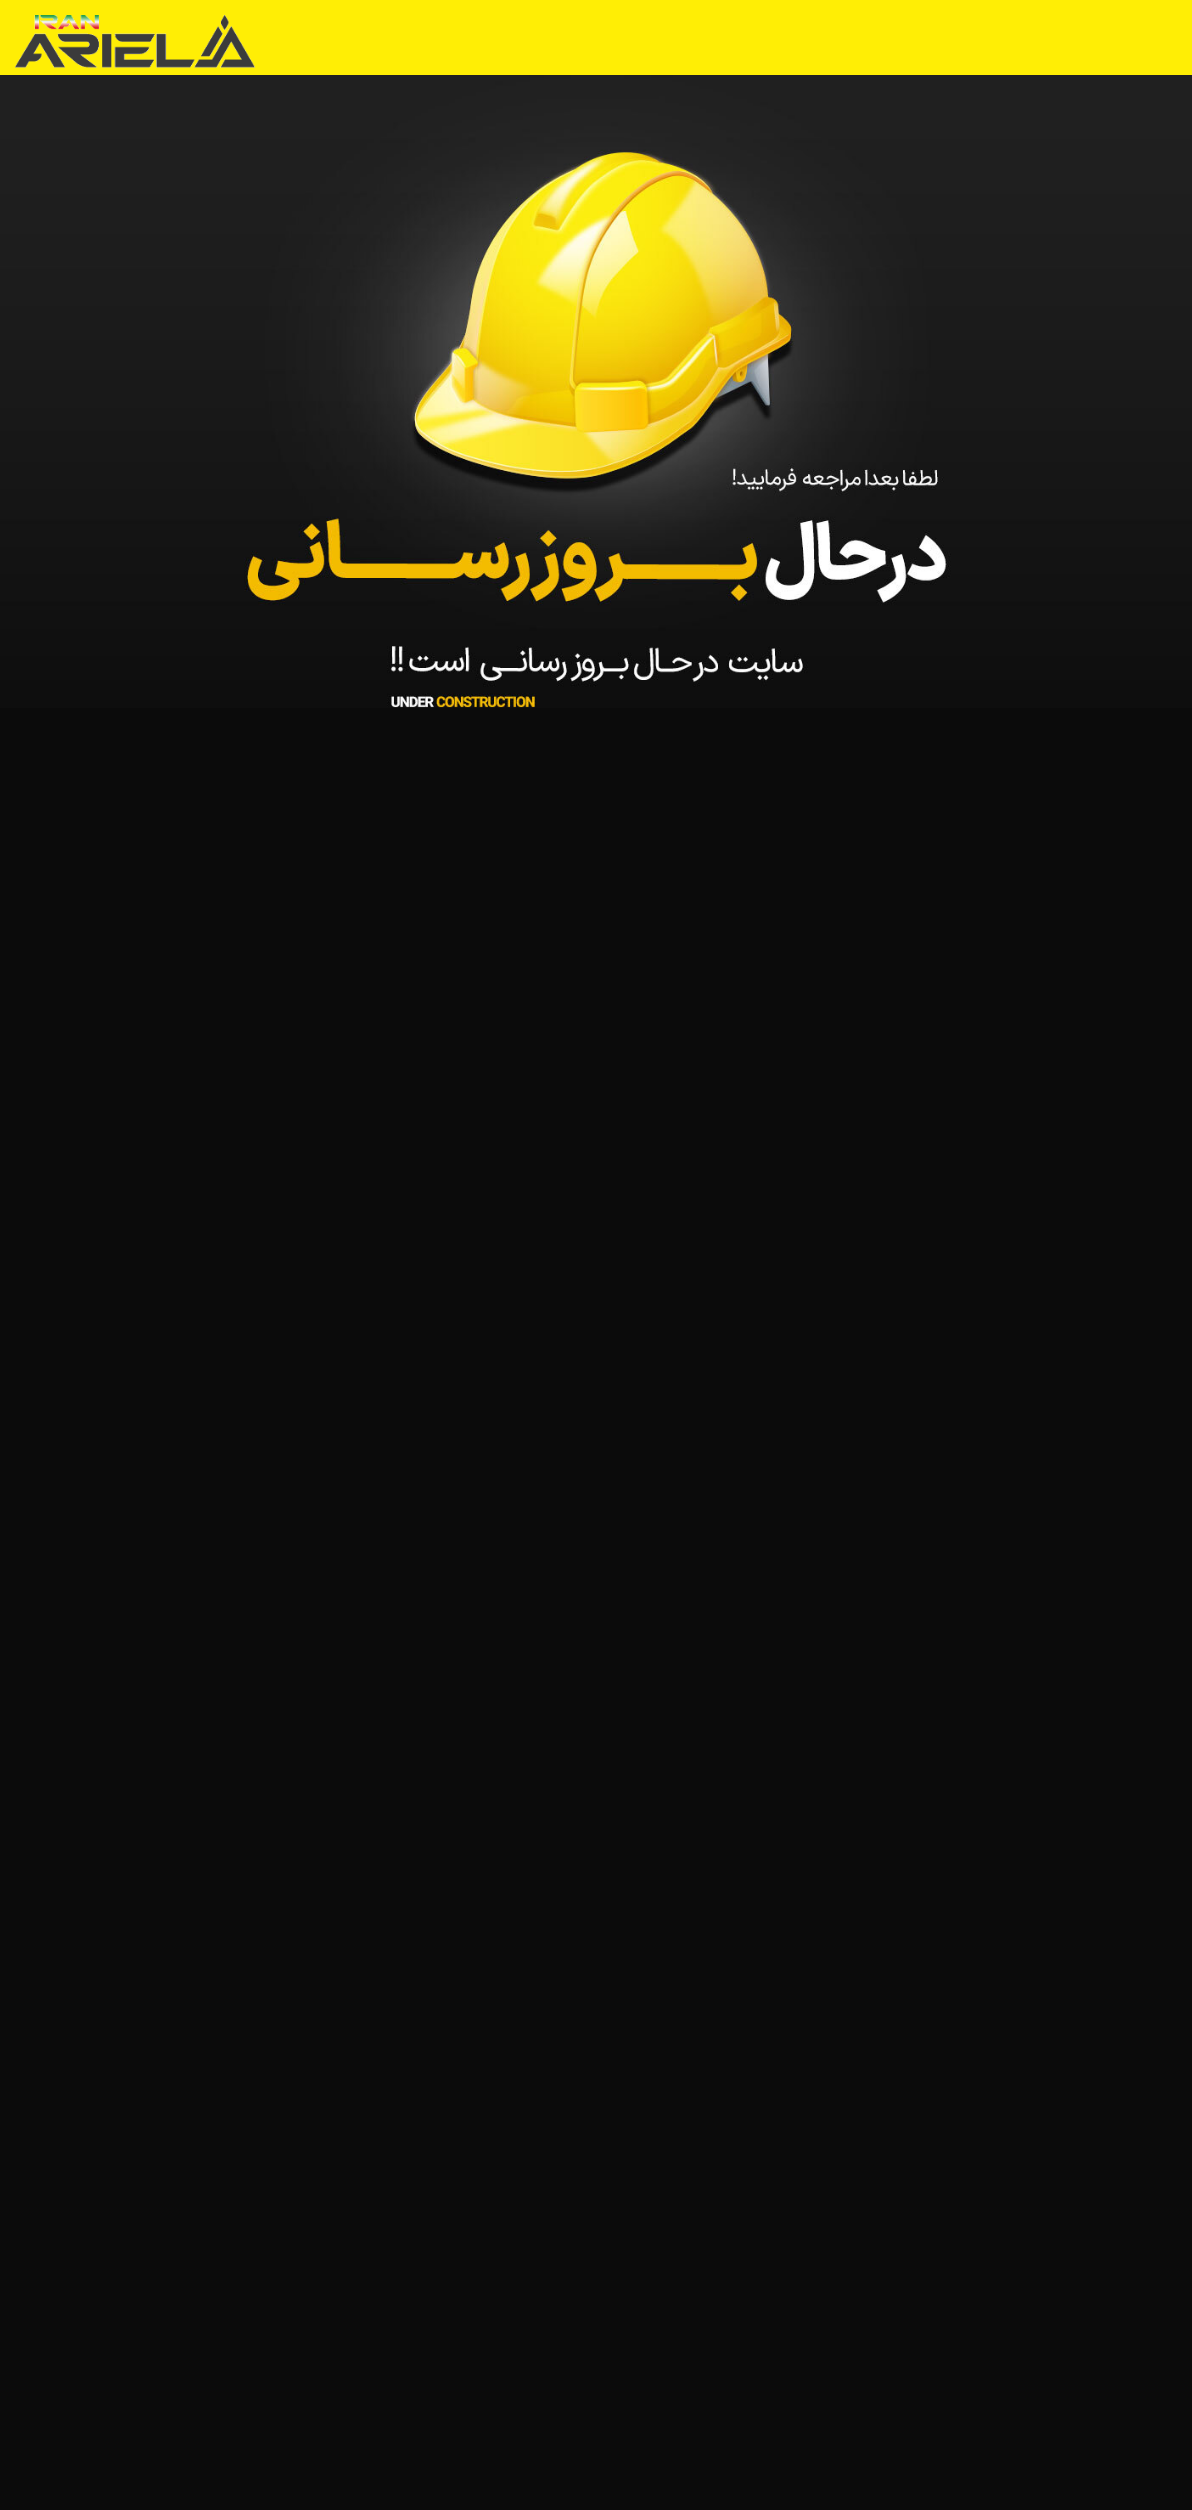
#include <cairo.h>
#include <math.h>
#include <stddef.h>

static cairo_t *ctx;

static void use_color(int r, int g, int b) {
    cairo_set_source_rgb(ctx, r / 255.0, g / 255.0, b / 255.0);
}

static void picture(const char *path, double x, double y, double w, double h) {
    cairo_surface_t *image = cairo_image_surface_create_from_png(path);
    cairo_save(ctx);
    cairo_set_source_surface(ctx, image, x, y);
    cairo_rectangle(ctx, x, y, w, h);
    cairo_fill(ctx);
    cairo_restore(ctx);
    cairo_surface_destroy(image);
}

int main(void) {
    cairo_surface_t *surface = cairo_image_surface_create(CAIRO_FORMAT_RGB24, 1192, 2510);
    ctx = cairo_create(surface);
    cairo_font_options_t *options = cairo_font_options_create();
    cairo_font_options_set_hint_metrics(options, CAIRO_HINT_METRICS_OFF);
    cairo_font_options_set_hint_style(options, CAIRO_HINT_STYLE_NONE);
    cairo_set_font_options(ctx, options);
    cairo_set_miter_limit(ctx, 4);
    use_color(11, 11, 11);
    cairo_paint(ctx);
    use_color(255, 238, 5);
    cairo_rectangle(ctx, 0, 0, 1192, 75);
    cairo_fill(ctx);
    picture("img1.png", 15, 15, 240, 53);
    picture("img2.png", 0, 75, 1192, 633);
    cairo_surface_write_to_png(surface, "result.png");
    cairo_font_options_destroy(options);
    cairo_destroy(ctx);
    cairo_surface_destroy(surface);
    return 0;
}
